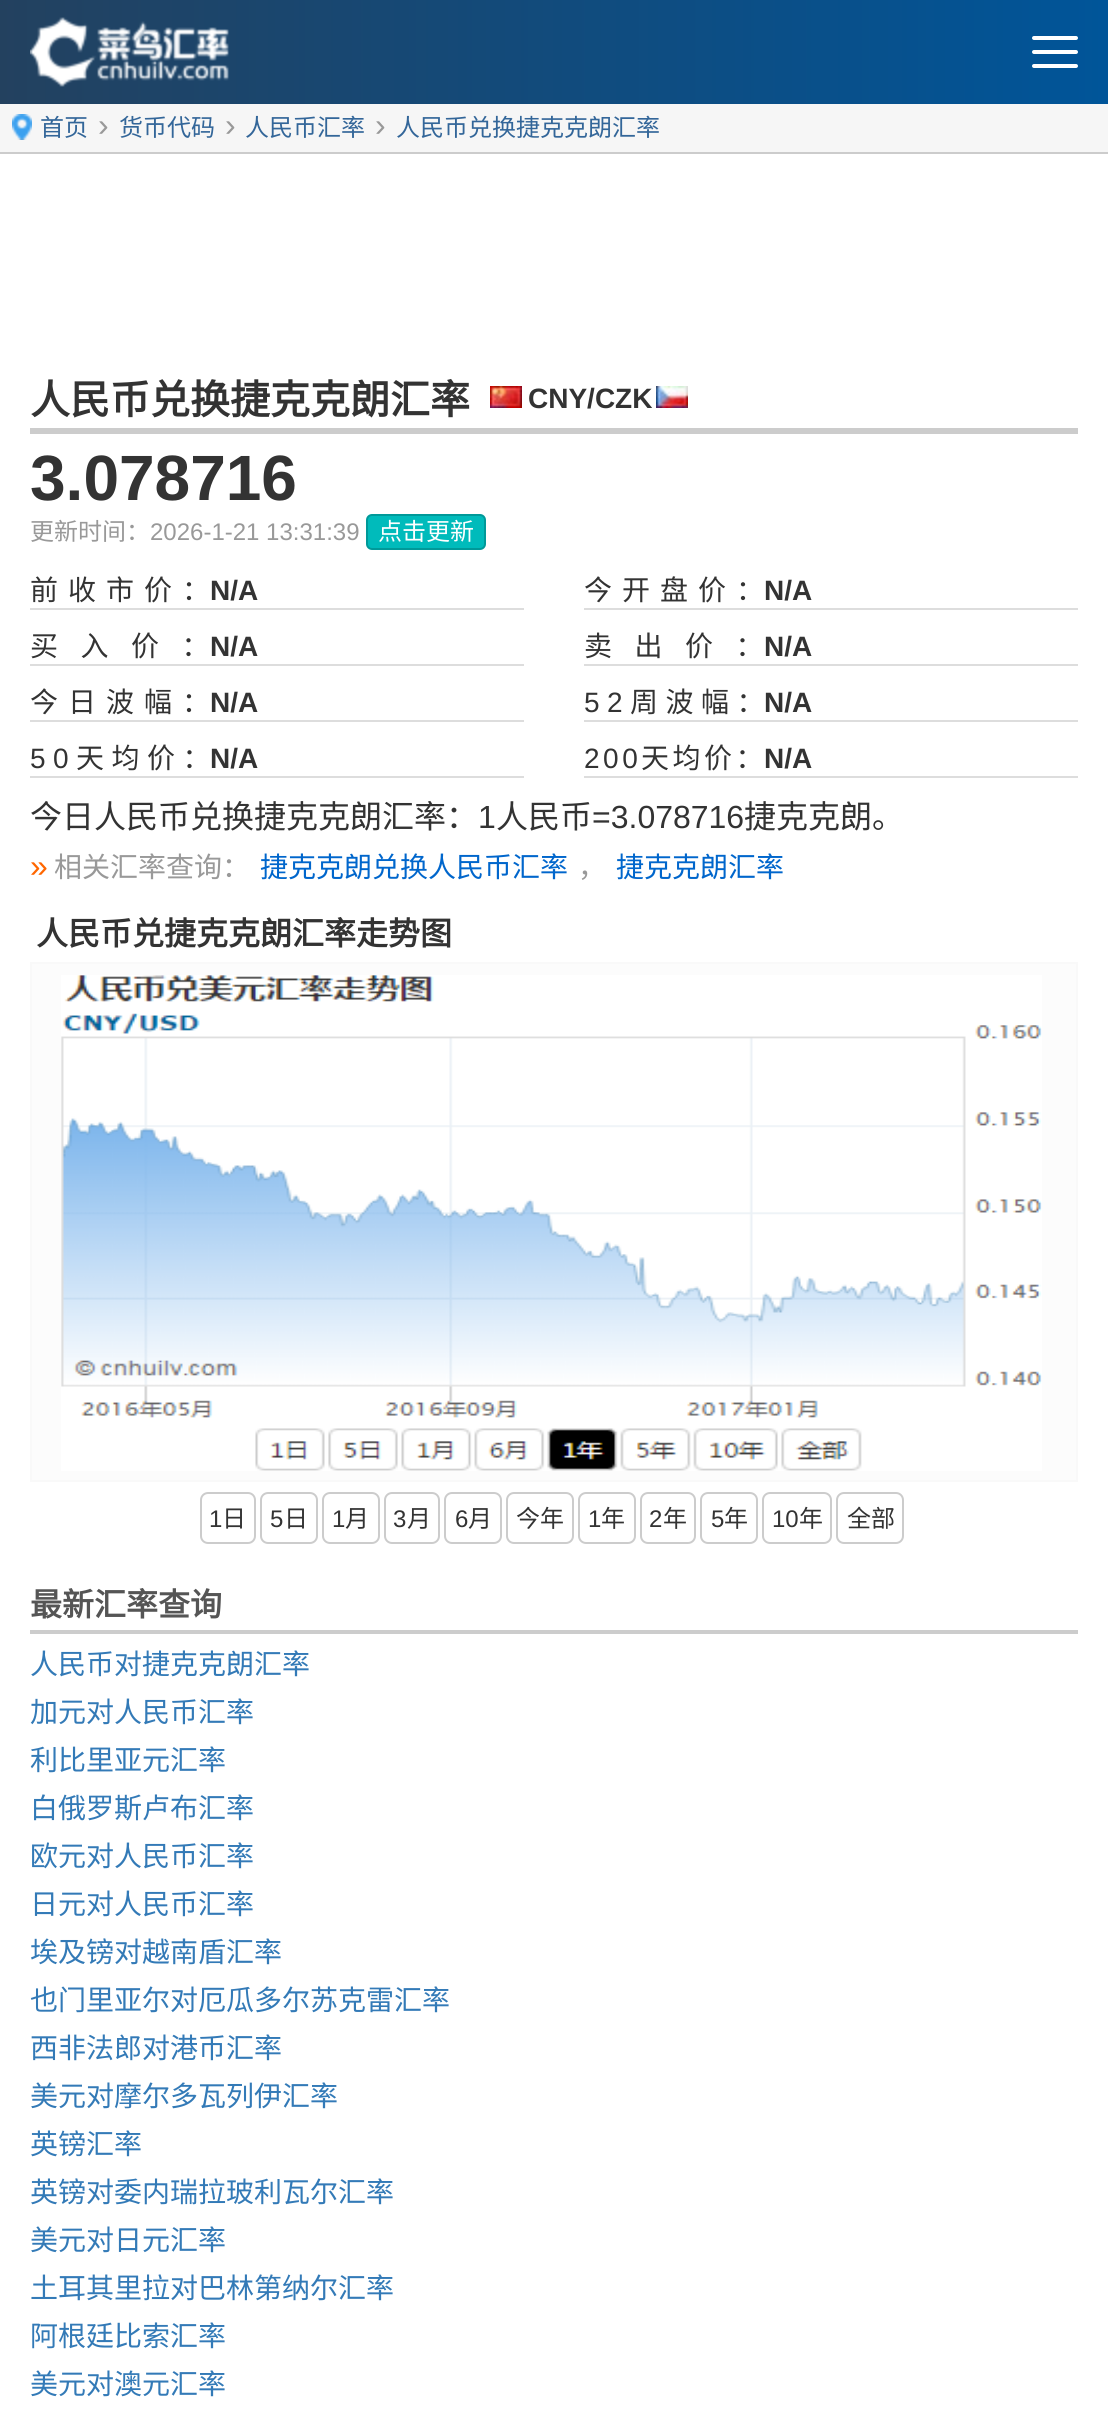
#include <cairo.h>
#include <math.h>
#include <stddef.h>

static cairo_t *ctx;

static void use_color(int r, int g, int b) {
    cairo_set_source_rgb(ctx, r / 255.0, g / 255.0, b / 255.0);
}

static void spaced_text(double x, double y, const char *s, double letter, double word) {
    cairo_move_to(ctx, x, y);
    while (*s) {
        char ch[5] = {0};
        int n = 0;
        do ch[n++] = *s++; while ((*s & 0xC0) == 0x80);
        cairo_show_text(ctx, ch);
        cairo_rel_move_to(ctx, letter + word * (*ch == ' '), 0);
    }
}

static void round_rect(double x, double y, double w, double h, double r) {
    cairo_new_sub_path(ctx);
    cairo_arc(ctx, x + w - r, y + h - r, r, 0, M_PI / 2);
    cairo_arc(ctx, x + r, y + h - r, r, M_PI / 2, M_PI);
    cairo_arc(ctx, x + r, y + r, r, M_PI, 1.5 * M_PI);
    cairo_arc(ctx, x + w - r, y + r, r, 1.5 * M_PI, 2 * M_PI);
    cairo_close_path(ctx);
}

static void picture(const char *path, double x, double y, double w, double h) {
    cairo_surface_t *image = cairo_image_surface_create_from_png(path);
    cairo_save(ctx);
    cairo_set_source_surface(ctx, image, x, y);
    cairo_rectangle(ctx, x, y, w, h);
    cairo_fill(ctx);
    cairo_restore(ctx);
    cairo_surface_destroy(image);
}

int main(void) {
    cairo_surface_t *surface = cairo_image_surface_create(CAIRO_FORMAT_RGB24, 1108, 2421);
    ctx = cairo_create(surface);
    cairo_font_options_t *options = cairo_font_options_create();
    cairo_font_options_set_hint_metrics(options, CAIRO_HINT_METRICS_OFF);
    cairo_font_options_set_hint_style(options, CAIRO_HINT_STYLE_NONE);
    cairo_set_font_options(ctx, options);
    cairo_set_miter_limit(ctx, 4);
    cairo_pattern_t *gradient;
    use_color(255, 255, 255);
    cairo_paint(ctx);
    gradient = cairo_pattern_create_linear(0, 0, 1108, 0);
    cairo_pattern_add_color_stop_rgba(gradient, 0, 0.137, 0.255, 0.373, 1);
    cairo_pattern_add_color_stop_rgba(gradient, 1, 0, 0.333, 0.6, 1);
    cairo_set_source(ctx, gradient);
    cairo_pattern_destroy(gradient);
    cairo_rectangle(ctx, 0, 0, 1108, 104);
    cairo_fill(ctx);
    picture("img1.png", 30, 17, 199, 70);
    use_color(255, 255, 255);
    round_rect(1032, 36, 46, 4, 2);
    cairo_fill(ctx);
    round_rect(1032, 50, 46, 4, 2);
    cairo_fill(ctx);
    round_rect(1032, 64, 46, 4, 2);
    cairo_fill(ctx);
    use_color(246, 246, 246);
    cairo_rectangle(ctx, 0, 104, 1108, 48);
    cairo_fill(ctx);
    use_color(204, 204, 204);
    cairo_rectangle(ctx, 0, 152, 1108, 2);
    cairo_fill(ctx);
    picture("img2.png", 12, 114, 20, 26);
    cairo_select_font_face(ctx, "Noto Sans CJK SC", CAIRO_FONT_SLANT_NORMAL, CAIRO_FONT_WEIGHT_NORMAL);
    cairo_set_font_size(ctx, 24);
    use_color(51, 102, 153);
    cairo_move_to(ctx, 40, 136);
    cairo_show_text(ctx, "首页");
    cairo_select_font_face(ctx, "Liberation Sans", CAIRO_FONT_SLANT_NORMAL, CAIRO_FONT_WEIGHT_NORMAL);
    cairo_set_font_size(ctx, 32);
    use_color(153, 153, 153);
    cairo_move_to(ctx, 98, 136);
    cairo_show_text(ctx, "›");
    cairo_select_font_face(ctx, "Noto Sans CJK SC", CAIRO_FONT_SLANT_NORMAL, CAIRO_FONT_WEIGHT_NORMAL);
    cairo_set_font_size(ctx, 24);
    use_color(51, 102, 153);
    cairo_move_to(ctx, 119, 136);
    cairo_show_text(ctx, "货币代码");
    cairo_select_font_face(ctx, "Liberation Sans", CAIRO_FONT_SLANT_NORMAL, CAIRO_FONT_WEIGHT_NORMAL);
    cairo_set_font_size(ctx, 32);
    use_color(153, 153, 153);
    cairo_move_to(ctx, 225, 136);
    cairo_show_text(ctx, "›");
    cairo_select_font_face(ctx, "Noto Sans CJK SC", CAIRO_FONT_SLANT_NORMAL, CAIRO_FONT_WEIGHT_NORMAL);
    cairo_set_font_size(ctx, 24);
    use_color(51, 102, 153);
    cairo_move_to(ctx, 245, 136);
    cairo_show_text(ctx, "人民币汇率");
    cairo_select_font_face(ctx, "Liberation Sans", CAIRO_FONT_SLANT_NORMAL, CAIRO_FONT_WEIGHT_NORMAL);
    cairo_set_font_size(ctx, 32);
    use_color(153, 153, 153);
    cairo_move_to(ctx, 375, 136);
    cairo_show_text(ctx, "›");
    cairo_select_font_face(ctx, "Noto Sans CJK SC", CAIRO_FONT_SLANT_NORMAL, CAIRO_FONT_WEIGHT_NORMAL);
    cairo_set_font_size(ctx, 24);
    use_color(51, 102, 153);
    cairo_move_to(ctx, 396, 136);
    cairo_show_text(ctx, "人民币兑换捷克克朗汇率");
    cairo_select_font_face(ctx, "Noto Sans CJK SC", CAIRO_FONT_SLANT_NORMAL, CAIRO_FONT_WEIGHT_BOLD);
    cairo_set_font_size(ctx, 40);
    use_color(51, 51, 51);
    cairo_move_to(ctx, 30, 414);
    cairo_show_text(ctx, "人民币兑换捷克克朗汇率");
    picture("img3.png", 490, 386, 32, 22);
    cairo_select_font_face(ctx, "Liberation Sans", CAIRO_FONT_SLANT_NORMAL, CAIRO_FONT_WEIGHT_BOLD);
    cairo_set_font_size(ctx, 28);
    cairo_move_to(ctx, 528, 408);
    cairo_show_text(ctx, "CNY/CZK");
    picture("img4.png", 656, 386, 32, 22);
    use_color(204, 204, 204);
    cairo_rectangle(ctx, 30, 428, 1048, 6);
    cairo_fill(ctx);
    cairo_set_font_size(ctx, 64);
    use_color(51, 51, 51);
    cairo_move_to(ctx, 30, 500);
    cairo_show_text(ctx, "3.078716");
    cairo_select_font_face(ctx, "Noto Sans CJK SC", CAIRO_FONT_SLANT_NORMAL, CAIRO_FONT_WEIGHT_NORMAL);
    cairo_set_font_size(ctx, 24);
    use_color(153, 153, 153);
    cairo_move_to(ctx, 30, 540);
    cairo_show_text(ctx, "更新时间：");
    cairo_select_font_face(ctx, "Liberation Sans", CAIRO_FONT_SLANT_NORMAL, CAIRO_FONT_WEIGHT_NORMAL);
    cairo_move_to(ctx, 150, 540);
    cairo_show_text(ctx, "2026-1-21 13:31:39");
    use_color(0, 187, 187);
    round_rect(367, 515, 118, 34, 5);
    cairo_fill_preserve(ctx);
    use_color(0, 153, 153);
    cairo_stroke(ctx);
    cairo_select_font_face(ctx, "Noto Sans CJK SC", CAIRO_FONT_SLANT_NORMAL, CAIRO_FONT_WEIGHT_NORMAL);
    use_color(255, 255, 255);
    cairo_move_to(ctx, 378, 540);
    cairo_show_text(ctx, "点击更新");
    use_color(221, 221, 221);
    cairo_rectangle(ctx, 30, 608, 494, 2);
    cairo_fill(ctx);
    cairo_set_font_size(ctx, 28);
    use_color(51, 51, 51);
    spaced_text(30, 600, "前收市价：", 10, 0);
    cairo_select_font_face(ctx, "Liberation Sans", CAIRO_FONT_SLANT_NORMAL, CAIRO_FONT_WEIGHT_BOLD);
    cairo_move_to(ctx, 210, 600);
    cairo_show_text(ctx, "N/A");
    use_color(221, 221, 221);
    cairo_rectangle(ctx, 584, 608, 494, 2);
    cairo_fill(ctx);
    cairo_select_font_face(ctx, "Noto Sans CJK SC", CAIRO_FONT_SLANT_NORMAL, CAIRO_FONT_WEIGHT_NORMAL);
    use_color(51, 51, 51);
    spaced_text(584, 600, "今开盘价：", 10, 0);
    cairo_select_font_face(ctx, "Liberation Sans", CAIRO_FONT_SLANT_NORMAL, CAIRO_FONT_WEIGHT_BOLD);
    cairo_move_to(ctx, 764, 600);
    cairo_show_text(ctx, "N/A");
    use_color(221, 221, 221);
    cairo_rectangle(ctx, 30, 664, 494, 2);
    cairo_fill(ctx);
    cairo_select_font_face(ctx, "Noto Sans CJK SC", CAIRO_FONT_SLANT_NORMAL, CAIRO_FONT_WEIGHT_NORMAL);
    use_color(51, 51, 51);
    spaced_text(30, 656, "买入价：", 22.5, 0);
    cairo_select_font_face(ctx, "Liberation Sans", CAIRO_FONT_SLANT_NORMAL, CAIRO_FONT_WEIGHT_BOLD);
    cairo_move_to(ctx, 210, 656);
    cairo_show_text(ctx, "N/A");
    use_color(221, 221, 221);
    cairo_rectangle(ctx, 584, 664, 494, 2);
    cairo_fill(ctx);
    cairo_select_font_face(ctx, "Noto Sans CJK SC", CAIRO_FONT_SLANT_NORMAL, CAIRO_FONT_WEIGHT_NORMAL);
    use_color(51, 51, 51);
    spaced_text(584, 656, "卖出价：", 22.5, 0);
    cairo_select_font_face(ctx, "Liberation Sans", CAIRO_FONT_SLANT_NORMAL, CAIRO_FONT_WEIGHT_BOLD);
    cairo_move_to(ctx, 764, 656);
    cairo_show_text(ctx, "N/A");
    use_color(221, 221, 221);
    cairo_rectangle(ctx, 30, 720, 494, 2);
    cairo_fill(ctx);
    cairo_select_font_face(ctx, "Noto Sans CJK SC", CAIRO_FONT_SLANT_NORMAL, CAIRO_FONT_WEIGHT_NORMAL);
    use_color(51, 51, 51);
    spaced_text(30, 712, "今日波幅：", 10, 0);
    cairo_select_font_face(ctx, "Liberation Sans", CAIRO_FONT_SLANT_NORMAL, CAIRO_FONT_WEIGHT_BOLD);
    cairo_move_to(ctx, 210, 712);
    cairo_show_text(ctx, "N/A");
    use_color(221, 221, 221);
    cairo_rectangle(ctx, 584, 720, 494, 2);
    cairo_fill(ctx);
    cairo_select_font_face(ctx, "Liberation Sans", CAIRO_FONT_SLANT_NORMAL, CAIRO_FONT_WEIGHT_NORMAL);
    use_color(51, 51, 51);
    spaced_text(584, 712, "52", 7.5, 0);
    cairo_select_font_face(ctx, "Noto Sans CJK SC", CAIRO_FONT_SLANT_NORMAL, CAIRO_FONT_WEIGHT_NORMAL);
    spaced_text(630, 712, "周波幅：", 7.5, 0);
    cairo_select_font_face(ctx, "Liberation Sans", CAIRO_FONT_SLANT_NORMAL, CAIRO_FONT_WEIGHT_BOLD);
    cairo_move_to(ctx, 764, 712);
    cairo_show_text(ctx, "N/A");
    use_color(221, 221, 221);
    cairo_rectangle(ctx, 30, 776, 494, 2);
    cairo_fill(ctx);
    cairo_select_font_face(ctx, "Liberation Sans", CAIRO_FONT_SLANT_NORMAL, CAIRO_FONT_WEIGHT_NORMAL);
    use_color(51, 51, 51);
    spaced_text(30, 768, "50", 7.5, 0);
    cairo_select_font_face(ctx, "Noto Sans CJK SC", CAIRO_FONT_SLANT_NORMAL, CAIRO_FONT_WEIGHT_NORMAL);
    spaced_text(76, 768, "天均价：", 7.5, 0);
    cairo_select_font_face(ctx, "Liberation Sans", CAIRO_FONT_SLANT_NORMAL, CAIRO_FONT_WEIGHT_BOLD);
    cairo_move_to(ctx, 210, 768);
    cairo_show_text(ctx, "N/A");
    use_color(221, 221, 221);
    cairo_rectangle(ctx, 584, 776, 494, 2);
    cairo_fill(ctx);
    cairo_select_font_face(ctx, "Liberation Sans", CAIRO_FONT_SLANT_NORMAL, CAIRO_FONT_WEIGHT_NORMAL);
    use_color(51, 51, 51);
    spaced_text(584, 768, "200", 3.5, 0);
    cairo_select_font_face(ctx, "Noto Sans CJK SC", CAIRO_FONT_SLANT_NORMAL, CAIRO_FONT_WEIGHT_NORMAL);
    spaced_text(641, 768, "天均价：", 3.5, 0);
    cairo_select_font_face(ctx, "Liberation Sans", CAIRO_FONT_SLANT_NORMAL, CAIRO_FONT_WEIGHT_BOLD);
    cairo_move_to(ctx, 764, 768);
    cairo_show_text(ctx, "N/A");
    cairo_select_font_face(ctx, "Noto Sans CJK SC", CAIRO_FONT_SLANT_NORMAL, CAIRO_FONT_WEIGHT_NORMAL);
    cairo_set_font_size(ctx, 32);
    cairo_move_to(ctx, 30, 828);
    cairo_show_text(ctx, "今日人民币兑换捷克克朗汇率：");
    cairo_select_font_face(ctx, "Liberation Sans", CAIRO_FONT_SLANT_NORMAL, CAIRO_FONT_WEIGHT_NORMAL);
    cairo_move_to(ctx, 478, 828);
    cairo_show_text(ctx, "1");
    cairo_select_font_face(ctx, "Noto Sans CJK SC", CAIRO_FONT_SLANT_NORMAL, CAIRO_FONT_WEIGHT_NORMAL);
    cairo_move_to(ctx, 496, 828);
    cairo_show_text(ctx, "人民币");
    cairo_select_font_face(ctx, "Liberation Sans", CAIRO_FONT_SLANT_NORMAL, CAIRO_FONT_WEIGHT_NORMAL);
    cairo_move_to(ctx, 592, 828);
    cairo_show_text(ctx, "=3.078716");
    cairo_select_font_face(ctx, "Noto Sans CJK SC", CAIRO_FONT_SLANT_NORMAL, CAIRO_FONT_WEIGHT_NORMAL);
    cairo_move_to(ctx, 744, 828);
    cairo_show_text(ctx, "捷克克朗。");
    cairo_select_font_face(ctx, "Liberation Sans", CAIRO_FONT_SLANT_NORMAL, CAIRO_FONT_WEIGHT_NORMAL);
    use_color(255, 102, 0);
    cairo_move_to(ctx, 30, 877);
    cairo_show_text(ctx, "»");
    cairo_select_font_face(ctx, "Noto Sans CJK SC", CAIRO_FONT_SLANT_NORMAL, CAIRO_FONT_WEIGHT_NORMAL);
    cairo_set_font_size(ctx, 28);
    use_color(153, 153, 153);
    cairo_move_to(ctx, 54, 877);
    cairo_show_text(ctx, "相关汇率查询：");
    use_color(0, 102, 204);
    cairo_move_to(ctx, 260, 877);
    cairo_show_text(ctx, "捷克克朗兑换人民币汇率");
    use_color(153, 153, 153);
    cairo_move_to(ctx, 578, 877);
    cairo_show_text(ctx, "，");
    use_color(0, 102, 204);
    cairo_move_to(ctx, 616, 877);
    cairo_show_text(ctx, "捷克克朗汇率");
    cairo_select_font_face(ctx, "Noto Sans CJK SC", CAIRO_FONT_SLANT_NORMAL, CAIRO_FONT_WEIGHT_BOLD);
    cairo_set_font_size(ctx, 32);
    use_color(51, 51, 51);
    cairo_move_to(ctx, 36, 945);
    cairo_show_text(ctx, "人民币兑捷克克朗汇率走势图");
    use_color(252, 252, 252);
    cairo_rectangle(ctx, 31, 963, 1046, 518);
    cairo_fill_preserve(ctx);
    use_color(249, 249, 249);
    cairo_stroke(ctx);
    picture("img5.png", 61, 975, 981, 496);
    round_rect(201, 1493, 54, 50, 7);
    use_color(204, 204, 204);
    cairo_stroke(ctx);
    cairo_select_font_face(ctx, "Liberation Sans", CAIRO_FONT_SLANT_NORMAL, CAIRO_FONT_WEIGHT_NORMAL);
    cairo_set_font_size(ctx, 24);
    use_color(51, 51, 51);
    cairo_move_to(ctx, 209, 1527);
    cairo_show_text(ctx, "1");
    cairo_select_font_face(ctx, "Noto Sans CJK SC", CAIRO_FONT_SLANT_NORMAL, CAIRO_FONT_WEIGHT_NORMAL);
    cairo_move_to(ctx, 222, 1527);
    cairo_show_text(ctx, "日");
    round_rect(261, 1493, 56, 50, 7);
    use_color(204, 204, 204);
    cairo_stroke(ctx);
    cairo_select_font_face(ctx, "Liberation Sans", CAIRO_FONT_SLANT_NORMAL, CAIRO_FONT_WEIGHT_NORMAL);
    use_color(51, 51, 51);
    cairo_move_to(ctx, 270, 1527);
    cairo_show_text(ctx, "5");
    cairo_select_font_face(ctx, "Noto Sans CJK SC", CAIRO_FONT_SLANT_NORMAL, CAIRO_FONT_WEIGHT_NORMAL);
    cairo_move_to(ctx, 284, 1527);
    cairo_show_text(ctx, "日");
    round_rect(323, 1493, 56, 50, 7);
    use_color(204, 204, 204);
    cairo_stroke(ctx);
    cairo_select_font_face(ctx, "Liberation Sans", CAIRO_FONT_SLANT_NORMAL, CAIRO_FONT_WEIGHT_NORMAL);
    use_color(51, 51, 51);
    cairo_move_to(ctx, 332, 1527);
    cairo_show_text(ctx, "1");
    cairo_select_font_face(ctx, "Noto Sans CJK SC", CAIRO_FONT_SLANT_NORMAL, CAIRO_FONT_WEIGHT_NORMAL);
    cairo_move_to(ctx, 345, 1527);
    cairo_show_text(ctx, "月");
    round_rect(385, 1493, 54, 50, 7);
    use_color(204, 204, 204);
    cairo_stroke(ctx);
    cairo_select_font_face(ctx, "Liberation Sans", CAIRO_FONT_SLANT_NORMAL, CAIRO_FONT_WEIGHT_NORMAL);
    use_color(51, 51, 51);
    cairo_move_to(ctx, 393, 1527);
    cairo_show_text(ctx, "3");
    cairo_select_font_face(ctx, "Noto Sans CJK SC", CAIRO_FONT_SLANT_NORMAL, CAIRO_FONT_WEIGHT_NORMAL);
    cairo_move_to(ctx, 407, 1527);
    cairo_show_text(ctx, "月");
    round_rect(445, 1493, 56, 50, 7);
    use_color(204, 204, 204);
    cairo_stroke(ctx);
    cairo_select_font_face(ctx, "Liberation Sans", CAIRO_FONT_SLANT_NORMAL, CAIRO_FONT_WEIGHT_NORMAL);
    use_color(51, 51, 51);
    cairo_move_to(ctx, 455, 1527);
    cairo_show_text(ctx, "6");
    cairo_select_font_face(ctx, "Noto Sans CJK SC", CAIRO_FONT_SLANT_NORMAL, CAIRO_FONT_WEIGHT_NORMAL);
    cairo_move_to(ctx, 468, 1527);
    cairo_show_text(ctx, "月");
    round_rect(507, 1493, 66, 50, 7);
    use_color(204, 204, 204);
    cairo_stroke(ctx);
    use_color(51, 51, 51);
    cairo_move_to(ctx, 516, 1527);
    cairo_show_text(ctx, "今年");
    round_rect(579, 1493, 56, 50, 7);
    use_color(204, 204, 204);
    cairo_stroke(ctx);
    cairo_select_font_face(ctx, "Liberation Sans", CAIRO_FONT_SLANT_NORMAL, CAIRO_FONT_WEIGHT_NORMAL);
    use_color(51, 51, 51);
    cairo_move_to(ctx, 588, 1527);
    cairo_show_text(ctx, "1");
    cairo_select_font_face(ctx, "Noto Sans CJK SC", CAIRO_FONT_SLANT_NORMAL, CAIRO_FONT_WEIGHT_NORMAL);
    cairo_move_to(ctx, 601, 1527);
    cairo_show_text(ctx, "年");
    round_rect(641, 1493, 54, 50, 7);
    use_color(204, 204, 204);
    cairo_stroke(ctx);
    cairo_select_font_face(ctx, "Liberation Sans", CAIRO_FONT_SLANT_NORMAL, CAIRO_FONT_WEIGHT_NORMAL);
    use_color(51, 51, 51);
    cairo_move_to(ctx, 649, 1527);
    cairo_show_text(ctx, "2");
    cairo_select_font_face(ctx, "Noto Sans CJK SC", CAIRO_FONT_SLANT_NORMAL, CAIRO_FONT_WEIGHT_NORMAL);
    cairo_move_to(ctx, 663, 1527);
    cairo_show_text(ctx, "年");
    round_rect(701, 1493, 56, 50, 7);
    use_color(204, 204, 204);
    cairo_stroke(ctx);
    cairo_select_font_face(ctx, "Liberation Sans", CAIRO_FONT_SLANT_NORMAL, CAIRO_FONT_WEIGHT_NORMAL);
    use_color(51, 51, 51);
    cairo_move_to(ctx, 711, 1527);
    cairo_show_text(ctx, "5");
    cairo_select_font_face(ctx, "Noto Sans CJK SC", CAIRO_FONT_SLANT_NORMAL, CAIRO_FONT_WEIGHT_NORMAL);
    cairo_move_to(ctx, 724, 1527);
    cairo_show_text(ctx, "年");
    round_rect(763, 1493, 68, 50, 7);
    use_color(204, 204, 204);
    cairo_stroke(ctx);
    cairo_select_font_face(ctx, "Liberation Sans", CAIRO_FONT_SLANT_NORMAL, CAIRO_FONT_WEIGHT_NORMAL);
    use_color(51, 51, 51);
    cairo_move_to(ctx, 772, 1527);
    cairo_show_text(ctx, "10");
    cairo_select_font_face(ctx, "Noto Sans CJK SC", CAIRO_FONT_SLANT_NORMAL, CAIRO_FONT_WEIGHT_NORMAL);
    cairo_move_to(ctx, 799, 1527);
    cairo_show_text(ctx, "年");
    round_rect(837, 1493, 66, 50, 7);
    use_color(204, 204, 204);
    cairo_stroke(ctx);
    use_color(51, 51, 51);
    cairo_move_to(ctx, 847, 1527);
    cairo_show_text(ctx, "全部");
    use_color(204, 204, 204);
    cairo_rectangle(ctx, 30, 1630, 1048, 4);
    cairo_fill(ctx);
    cairo_select_font_face(ctx, "Noto Sans CJK SC", CAIRO_FONT_SLANT_NORMAL, CAIRO_FONT_WEIGHT_BOLD);
    cairo_set_font_size(ctx, 32);
    use_color(85, 85, 85);
    cairo_move_to(ctx, 30, 1616);
    cairo_show_text(ctx, "最新汇率查询");
    cairo_select_font_face(ctx, "Noto Sans CJK SC", CAIRO_FONT_SLANT_NORMAL, CAIRO_FONT_WEIGHT_NORMAL);
    cairo_set_font_size(ctx, 28);
    use_color(51, 122, 183);
    cairo_move_to(ctx, 30, 1674);
    cairo_show_text(ctx, "人民币对捷克克朗汇率");
    cairo_move_to(ctx, 30, 1722);
    cairo_show_text(ctx, "加元对人民币汇率");
    cairo_move_to(ctx, 30, 1770);
    cairo_show_text(ctx, "利比里亚元汇率");
    cairo_move_to(ctx, 30, 1818);
    cairo_show_text(ctx, "白俄罗斯卢布汇率");
    cairo_move_to(ctx, 30, 1866);
    cairo_show_text(ctx, "欧元对人民币汇率");
    cairo_move_to(ctx, 30, 1914);
    cairo_show_text(ctx, "日元对人民币汇率");
    cairo_move_to(ctx, 30, 1962);
    cairo_show_text(ctx, "埃及镑对越南盾汇率");
    cairo_move_to(ctx, 30, 2010);
    cairo_show_text(ctx, "也门里亚尔对厄瓜多尔苏克雷汇率");
    cairo_move_to(ctx, 30, 2058);
    cairo_show_text(ctx, "西非法郎对港币汇率");
    cairo_move_to(ctx, 30, 2106);
    cairo_show_text(ctx, "美元对摩尔多瓦列伊汇率");
    cairo_move_to(ctx, 30, 2154);
    cairo_show_text(ctx, "英镑汇率");
    cairo_move_to(ctx, 30, 2202);
    cairo_show_text(ctx, "英镑对委内瑞拉玻利瓦尔汇率");
    cairo_move_to(ctx, 30, 2250);
    cairo_show_text(ctx, "美元对日元汇率");
    cairo_move_to(ctx, 30, 2298);
    cairo_show_text(ctx, "土耳其里拉对巴林第纳尔汇率");
    cairo_move_to(ctx, 30, 2346);
    cairo_show_text(ctx, "阿根廷比索汇率");
    cairo_move_to(ctx, 30, 2394);
    cairo_show_text(ctx, "美元对澳元汇率");
    cairo_surface_write_to_png(surface, "result.png");
    cairo_font_options_destroy(options);
    cairo_destroy(ctx);
    cairo_surface_destroy(surface);
    return 0;
}
